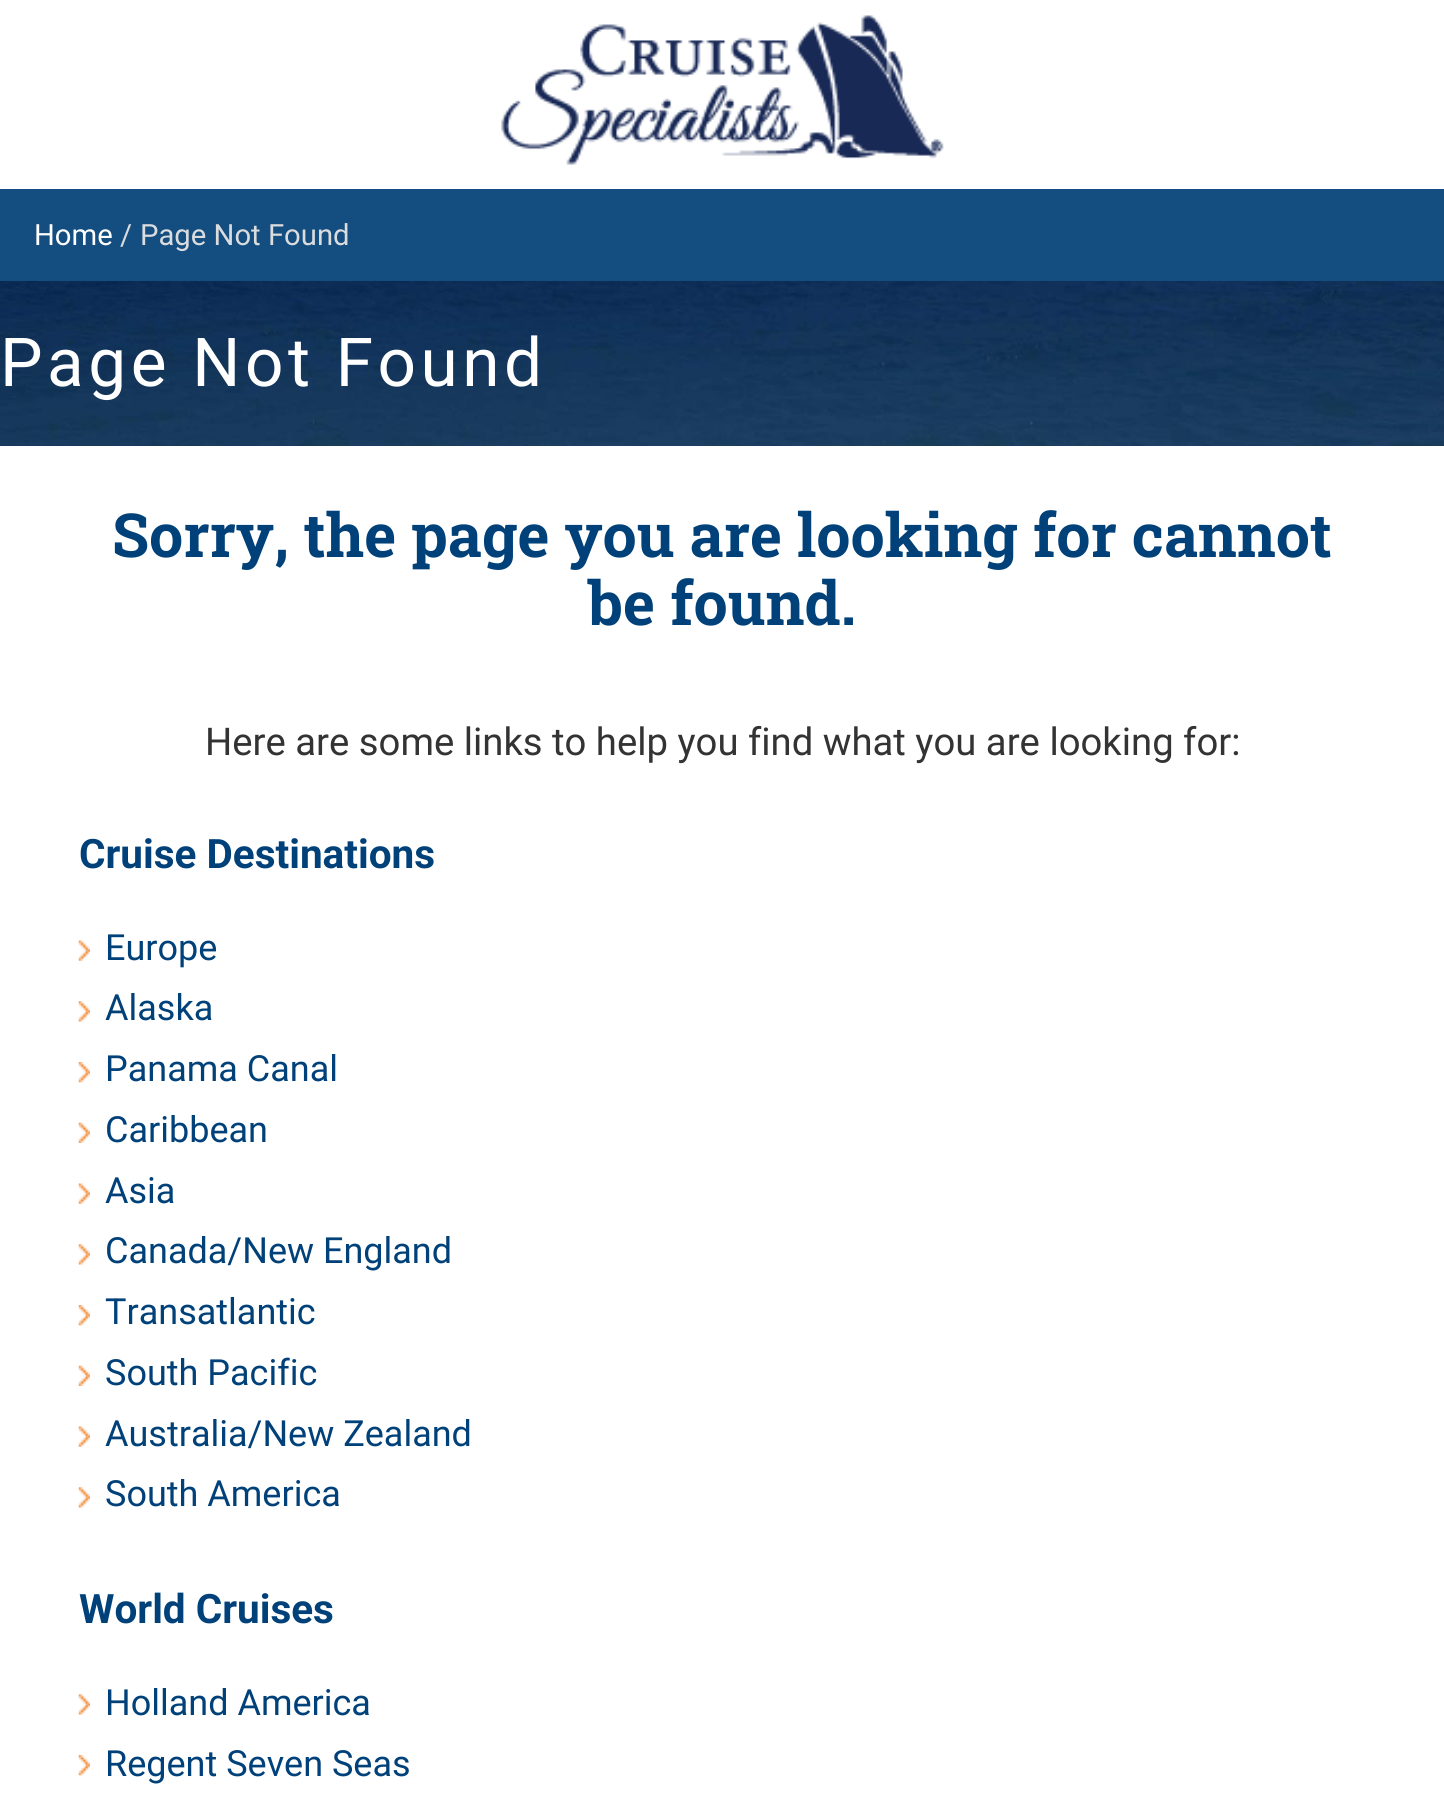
#include <cairo.h>
#include <math.h>
#include <stddef.h>

static cairo_t *ctx;

static void use_color(int r, int g, int b) {
    cairo_set_source_rgb(ctx, r / 255.0, g / 255.0, b / 255.0);
}

static void spaced_text(double x, double y, const char *s, double letter, double word) {
    cairo_move_to(ctx, x, y);
    while (*s) {
        char ch[5] = {0};
        int n = 0;
        do ch[n++] = *s++; while ((*s & 0xC0) == 0x80);
        cairo_show_text(ctx, ch);
        cairo_rel_move_to(ctx, letter + word * (*ch == ' '), 0);
    }
}

static void picture(const char *path, double x, double y, double w, double h) {
    cairo_surface_t *image = cairo_image_surface_create_from_png(path);
    cairo_save(ctx);
    cairo_set_source_surface(ctx, image, x, y);
    cairo_rectangle(ctx, x, y, w, h);
    cairo_fill(ctx);
    cairo_restore(ctx);
    cairo_surface_destroy(image);
}

int main(void) {
    cairo_surface_t *surface = cairo_image_surface_create(CAIRO_FORMAT_RGB24, 1444, 1799);
    ctx = cairo_create(surface);
    cairo_font_options_t *options = cairo_font_options_create();
    cairo_font_options_set_hint_metrics(options, CAIRO_HINT_METRICS_OFF);
    cairo_font_options_set_hint_style(options, CAIRO_HINT_STYLE_NONE);
    cairo_set_font_options(ctx, options);
    cairo_set_miter_limit(ctx, 4);
    use_color(255, 255, 255);
    cairo_paint(ctx);
    picture("img1.png", 501, 15, 443, 150);
    picture("img2.png", 0, 281, 1444, 165);
    use_color(20, 77, 128);
    cairo_rectangle(ctx, 0, 189, 1444, 92);
    cairo_fill(ctx);
    cairo_select_font_face(ctx, "Roboto", CAIRO_FONT_SLANT_NORMAL, CAIRO_FONT_WEIGHT_NORMAL);
    cairo_set_font_size(ctx, 29.25);
    use_color(255, 255, 255);
    cairo_move_to(ctx, 34, 245);
    cairo_show_text(ctx, "Home");
    use_color(219, 220, 221);
    cairo_move_to(ctx, 120, 245);
    cairo_show_text(ctx, "/");
    cairo_move_to(ctx, 140, 245);
    cairo_show_text(ctx, "Page Not Found");
    cairo_set_font_size(ctx, 67.5);
    use_color(255, 255, 255);
    spaced_text(0, 386, "Page Not Found", 4.5, 0);
    cairo_select_font_face(ctx, "Roboto Slab", CAIRO_FONT_SLANT_NORMAL, CAIRO_FONT_WEIGHT_BOLD);
    cairo_set_font_size(ctx, 60.75);
    use_color(1, 65, 121);
    cairo_move_to(ctx, 112, 557);
    cairo_show_text(ctx, "Sorry, the page you are looking for cannot");
    cairo_move_to(ctx, 588, 625);
    cairo_show_text(ctx, "be found.");
    cairo_select_font_face(ctx, "Roboto", CAIRO_FONT_SLANT_NORMAL, CAIRO_FONT_WEIGHT_NORMAL);
    cairo_set_font_size(ctx, 38.25);
    use_color(51, 51, 51);
    cairo_move_to(ctx, 205, 755);
    cairo_show_text(ctx, "Here are some links to help you find what you are looking for:");
    cairo_select_font_face(ctx, "Roboto", CAIRO_FONT_SLANT_NORMAL, CAIRO_FONT_WEIGHT_BOLD);
    cairo_set_font_size(ctx, 40.5);
    use_color(1, 65, 121);
    cairo_move_to(ctx, 79, 868);
    cairo_show_text(ctx, "Cruise Destinations");
    picture("img3.png", 78, 940, 12, 21);
    cairo_select_font_face(ctx, "Roboto", CAIRO_FONT_SLANT_NORMAL, CAIRO_FONT_WEIGHT_NORMAL);
    cairo_set_font_size(ctx, 36);
    cairo_move_to(ctx, 105, 960);
    cairo_show_text(ctx, "Europe");
    picture("img4.png", 78, 1001, 12, 21);
    cairo_move_to(ctx, 105, 1020);
    cairo_show_text(ctx, "Alaska");
    picture("img5.png", 78, 1062, 12, 21);
    cairo_move_to(ctx, 105, 1081);
    cairo_show_text(ctx, "Panama Canal");
    picture("img6.png", 78, 1122, 12, 21);
    cairo_move_to(ctx, 105, 1142);
    cairo_show_text(ctx, "Caribbean");
    picture("img3.png", 78, 1183, 12, 21);
    cairo_move_to(ctx, 105, 1203);
    cairo_show_text(ctx, "Asia");
    picture("img4.png", 78, 1244, 12, 21);
    cairo_move_to(ctx, 105, 1263);
    cairo_show_text(ctx, "Canada/New England");
    picture("img5.png", 78, 1305, 12, 21);
    cairo_move_to(ctx, 105, 1324);
    cairo_show_text(ctx, "Transatlantic");
    picture("img6.png", 78, 1365, 12, 21);
    cairo_move_to(ctx, 105, 1385);
    cairo_show_text(ctx, "South Pacific");
    picture("img3.png", 78, 1426, 12, 21);
    cairo_move_to(ctx, 105, 1446);
    cairo_show_text(ctx, "Australia/New Zealand");
    picture("img4.png", 78, 1487, 12, 21);
    cairo_move_to(ctx, 105, 1506);
    cairo_show_text(ctx, "South America");
    cairo_select_font_face(ctx, "Roboto", CAIRO_FONT_SLANT_NORMAL, CAIRO_FONT_WEIGHT_BOLD);
    cairo_set_font_size(ctx, 40.5);
    cairo_move_to(ctx, 79, 1623);
    cairo_show_text(ctx, "World Cruises");
    picture("img4.png", 78, 1694, 12, 21);
    cairo_select_font_face(ctx, "Roboto", CAIRO_FONT_SLANT_NORMAL, CAIRO_FONT_WEIGHT_NORMAL);
    cairo_set_font_size(ctx, 36);
    cairo_move_to(ctx, 105, 1715);
    cairo_show_text(ctx, "Holland America");
    picture("img5.png", 78, 1755, 12, 21);
    cairo_move_to(ctx, 105, 1776);
    cairo_show_text(ctx, "Regent Seven Seas");
    cairo_surface_write_to_png(surface, "result.png");
    cairo_font_options_destroy(options);
    cairo_destroy(ctx);
    cairo_surface_destroy(surface);
    return 0;
}
